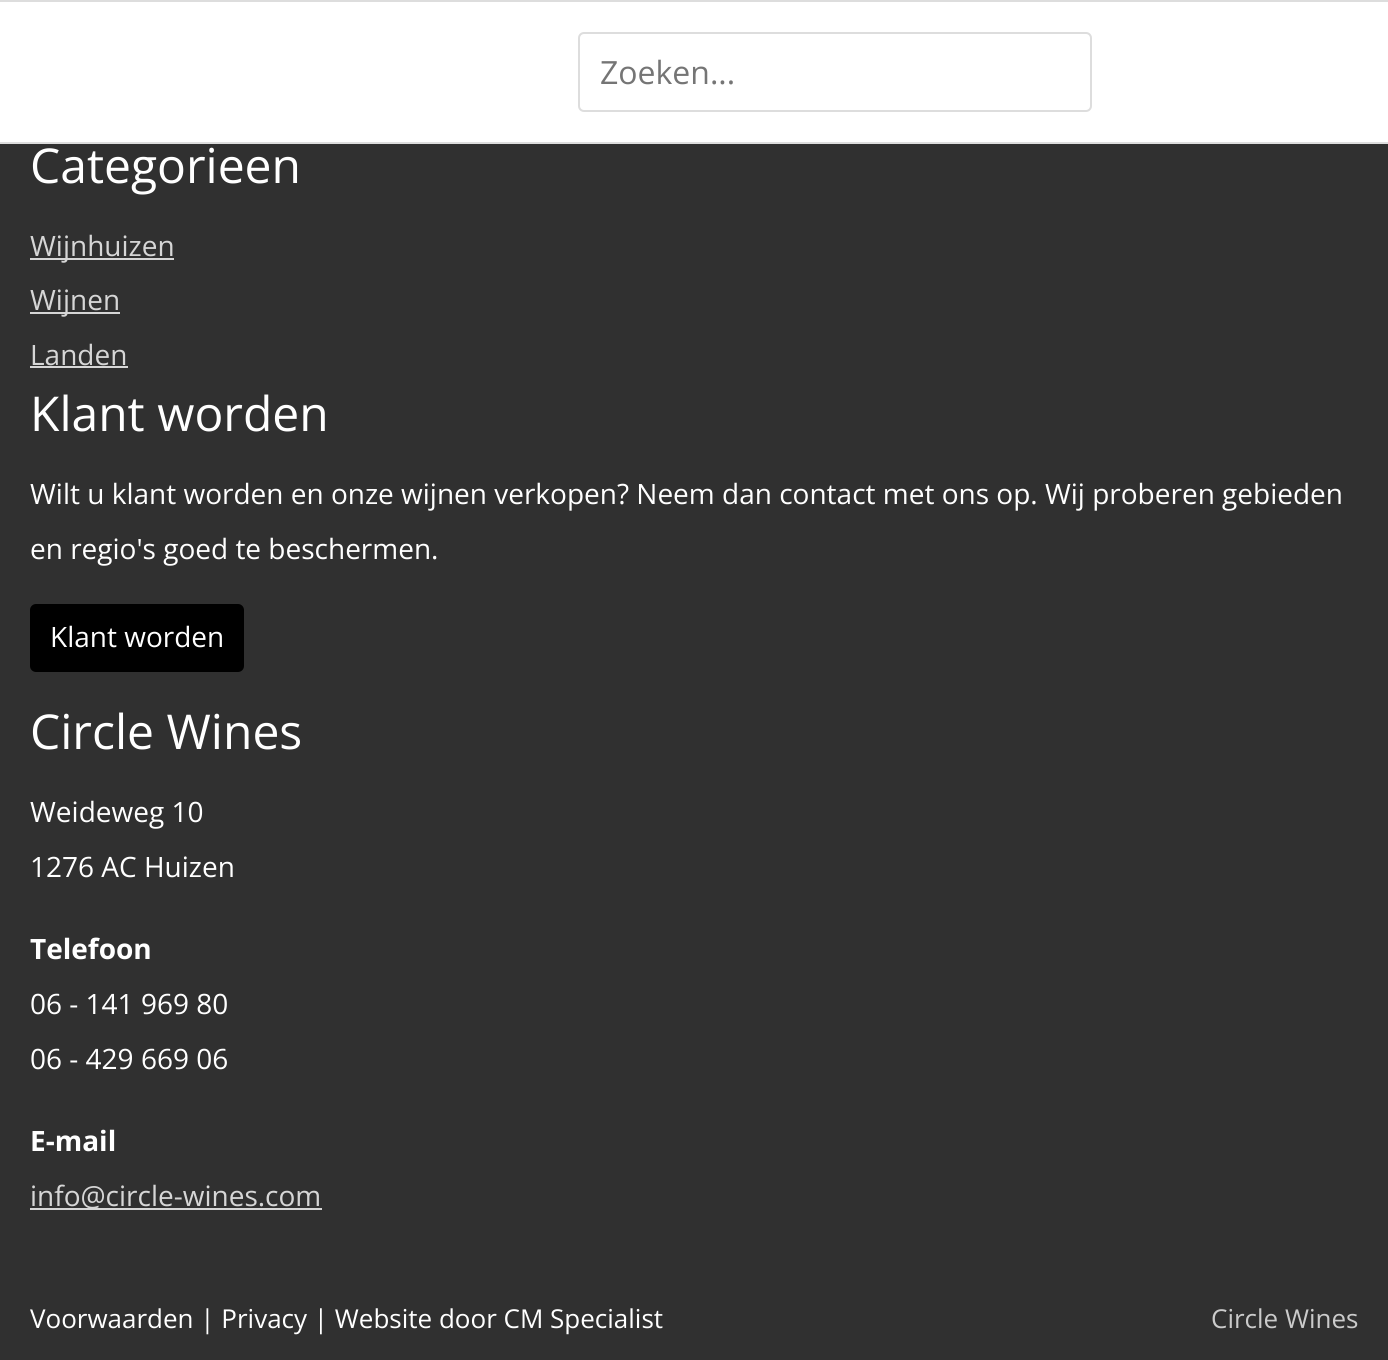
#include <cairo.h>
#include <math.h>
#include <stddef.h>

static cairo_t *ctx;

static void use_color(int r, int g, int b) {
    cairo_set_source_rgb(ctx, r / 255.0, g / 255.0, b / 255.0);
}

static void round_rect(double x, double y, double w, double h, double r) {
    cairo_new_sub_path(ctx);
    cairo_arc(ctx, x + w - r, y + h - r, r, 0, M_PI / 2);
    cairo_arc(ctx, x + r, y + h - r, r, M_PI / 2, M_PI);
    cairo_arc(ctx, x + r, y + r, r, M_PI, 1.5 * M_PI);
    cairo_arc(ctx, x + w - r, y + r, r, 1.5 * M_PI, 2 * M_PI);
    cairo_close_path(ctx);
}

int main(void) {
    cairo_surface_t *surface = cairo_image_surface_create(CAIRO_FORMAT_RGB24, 1388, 1360);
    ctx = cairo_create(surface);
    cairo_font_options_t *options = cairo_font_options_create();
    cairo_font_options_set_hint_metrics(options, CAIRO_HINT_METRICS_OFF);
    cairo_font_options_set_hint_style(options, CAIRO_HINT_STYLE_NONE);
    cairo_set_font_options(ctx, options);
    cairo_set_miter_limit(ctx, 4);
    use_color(48, 48, 48);
    cairo_paint(ctx);
    use_color(255, 255, 255);
    cairo_rectangle(ctx, 0, 2, 1388, 140);
    cairo_fill(ctx);
    use_color(221, 221, 221);
    cairo_rectangle(ctx, 0, 0, 1388, 2);
    cairo_fill(ctx);
    cairo_rectangle(ctx, 0, 142, 1388, 2);
    cairo_fill(ctx);
    round_rect(579, 33, 512, 78, 5);
    cairo_stroke(ctx);
    cairo_select_font_face(ctx, "Open Sans", CAIRO_FONT_SLANT_NORMAL, CAIRO_FONT_WEIGHT_NORMAL);
    cairo_set_font_size(ctx, 32);
    use_color(117, 117, 117);
    cairo_move_to(ctx, 600, 84);
    cairo_show_text(ctx, "Zoeken...");
    cairo_set_font_size(ctx, 48);
    use_color(255, 255, 255);
    cairo_move_to(ctx, 30, 183);
    cairo_show_text(ctx, "Categorieen");
    use_color(214, 214, 214);
    cairo_rectangle(ctx, 30, 258, 144, 2);
    cairo_fill(ctx);
    cairo_set_font_size(ctx, 28);
    cairo_move_to(ctx, 30, 256);
    cairo_show_text(ctx, "Wijnhuizen");
    cairo_rectangle(ctx, 30, 312, 90, 2);
    cairo_fill(ctx);
    cairo_move_to(ctx, 30, 310);
    cairo_show_text(ctx, "Wijnen");
    cairo_move_to(ctx, 30, 365);
    cairo_show_text(ctx, "Landen");
    cairo_rectangle(ctx, 30, 366, 98, 2);
    cairo_fill(ctx);
    cairo_set_font_size(ctx, 48);
    use_color(255, 255, 255);
    cairo_move_to(ctx, 30, 431);
    cairo_show_text(ctx, "Klant worden");
    cairo_set_font_size(ctx, 28);
    cairo_move_to(ctx, 30, 504);
    cairo_show_text(ctx, "Wilt u klant worden en onze wijnen verkopen? Neem dan contact met ons op. Wij proberen gebieden");
    cairo_move_to(ctx, 30, 559);
    cairo_show_text(ctx, "en regio's goed te beschermen.");
    use_color(0, 0, 0);
    round_rect(30, 604, 214, 68, 6);
    cairo_fill(ctx);
    use_color(255, 255, 255);
    cairo_move_to(ctx, 50, 647);
    cairo_show_text(ctx, "Klant worden");
    cairo_set_font_size(ctx, 48);
    cairo_move_to(ctx, 30, 749);
    cairo_show_text(ctx, "Circle Wines");
    cairo_set_font_size(ctx, 28);
    cairo_move_to(ctx, 30, 822);
    cairo_show_text(ctx, "Weideweg 10");
    cairo_move_to(ctx, 30, 877);
    cairo_show_text(ctx, "1276 AC Huizen");
    cairo_select_font_face(ctx, "Open Sans", CAIRO_FONT_SLANT_NORMAL, CAIRO_FONT_WEIGHT_BOLD);
    cairo_move_to(ctx, 30, 959);
    cairo_show_text(ctx, "Telefoon");
    cairo_select_font_face(ctx, "Open Sans", CAIRO_FONT_SLANT_NORMAL, CAIRO_FONT_WEIGHT_NORMAL);
    cairo_move_to(ctx, 30, 1014);
    cairo_show_text(ctx, "06 - 141 969 80");
    cairo_move_to(ctx, 30, 1069);
    cairo_show_text(ctx, "06 - 429 669 06");
    cairo_select_font_face(ctx, "Open Sans", CAIRO_FONT_SLANT_NORMAL, CAIRO_FONT_WEIGHT_BOLD);
    cairo_move_to(ctx, 30, 1151);
    cairo_show_text(ctx, "E-mail");
    use_color(214, 214, 214);
    cairo_rectangle(ctx, 30, 1208, 292, 2);
    cairo_fill(ctx);
    cairo_select_font_face(ctx, "Open Sans", CAIRO_FONT_SLANT_NORMAL, CAIRO_FONT_WEIGHT_NORMAL);
    cairo_move_to(ctx, 30, 1206);
    cairo_show_text(ctx, "info@circle-wines.com");
    cairo_set_font_size(ctx, 26);
    use_color(255, 255, 255);
    cairo_move_to(ctx, 30, 1328);
    cairo_show_text(ctx, "Voorwaarden | Privacy | Website door CM Specialist");
    use_color(203, 203, 203);
    cairo_move_to(ctx, 1211, 1328);
    cairo_show_text(ctx, "Circle Wines");
    cairo_surface_write_to_png(surface, "result.png");
    cairo_font_options_destroy(options);
    cairo_destroy(ctx);
    cairo_surface_destroy(surface);
    return 0;
}
